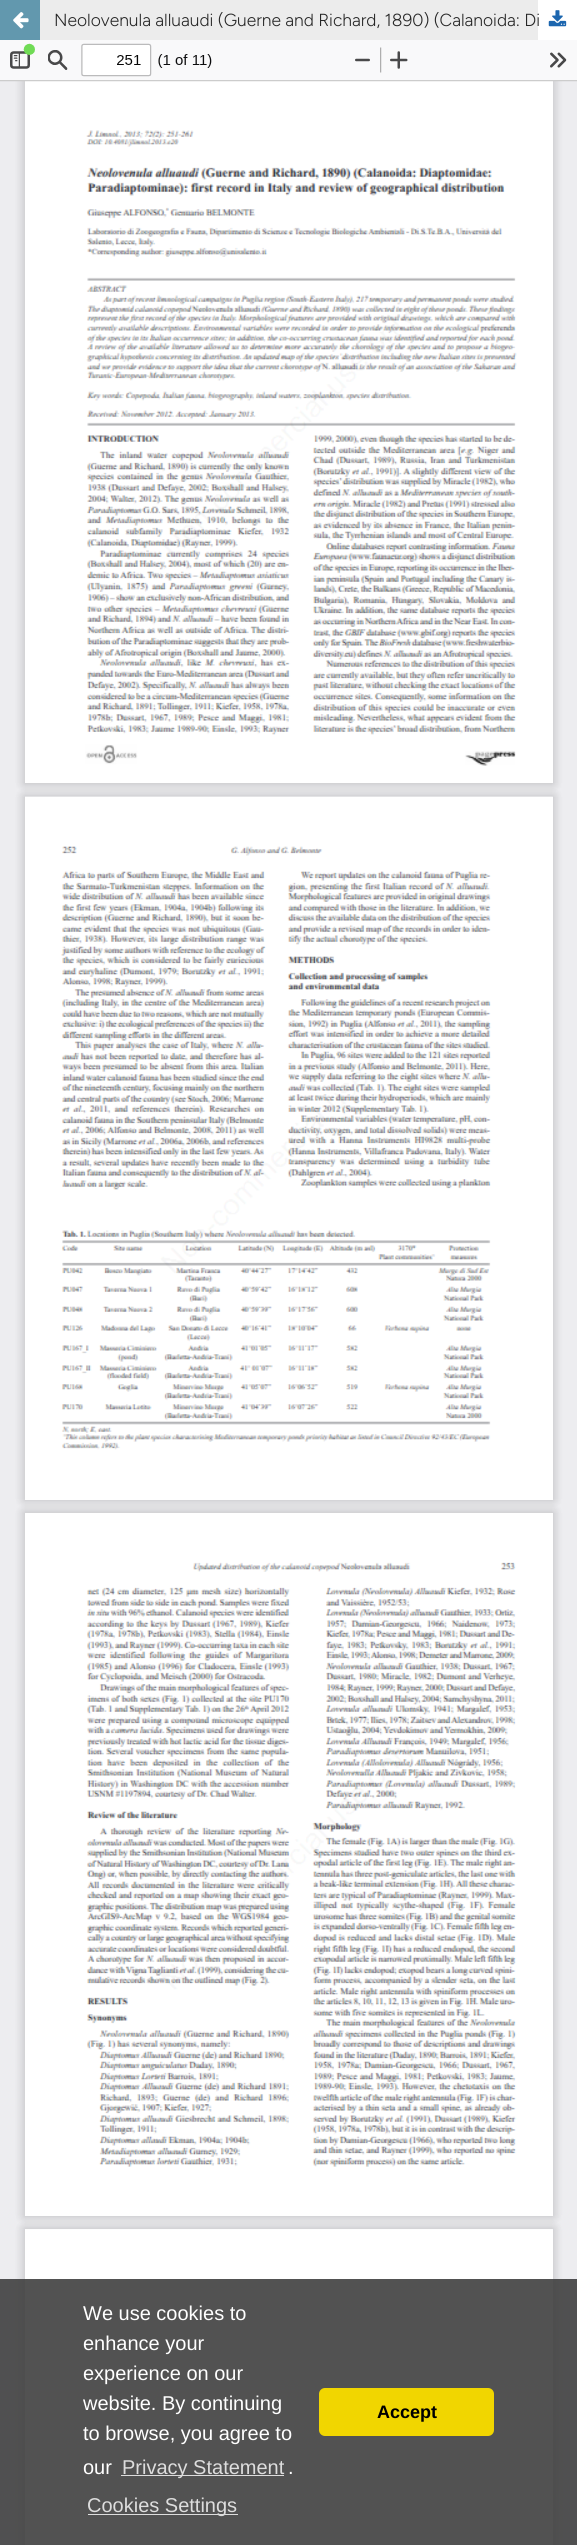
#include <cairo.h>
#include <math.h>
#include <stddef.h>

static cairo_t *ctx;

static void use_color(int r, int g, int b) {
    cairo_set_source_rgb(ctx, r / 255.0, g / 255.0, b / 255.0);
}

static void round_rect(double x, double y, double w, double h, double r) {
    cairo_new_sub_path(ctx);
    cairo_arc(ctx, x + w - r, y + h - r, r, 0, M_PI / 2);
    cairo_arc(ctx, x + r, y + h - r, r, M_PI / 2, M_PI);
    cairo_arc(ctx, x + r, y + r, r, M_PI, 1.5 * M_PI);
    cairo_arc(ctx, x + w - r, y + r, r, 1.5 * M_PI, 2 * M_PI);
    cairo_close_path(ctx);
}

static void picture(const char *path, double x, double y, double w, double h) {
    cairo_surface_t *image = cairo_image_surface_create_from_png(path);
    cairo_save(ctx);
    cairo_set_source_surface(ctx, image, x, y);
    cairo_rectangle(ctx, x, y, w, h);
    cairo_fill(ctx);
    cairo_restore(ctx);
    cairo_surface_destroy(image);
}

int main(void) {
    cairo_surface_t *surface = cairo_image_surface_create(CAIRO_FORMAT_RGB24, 577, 2545);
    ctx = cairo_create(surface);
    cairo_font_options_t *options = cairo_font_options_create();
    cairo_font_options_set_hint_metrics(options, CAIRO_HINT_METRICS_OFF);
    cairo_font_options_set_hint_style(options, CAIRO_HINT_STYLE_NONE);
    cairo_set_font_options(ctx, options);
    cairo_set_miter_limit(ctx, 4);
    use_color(255, 255, 255);
    cairo_paint(ctx);
    use_color(236, 236, 236);
    cairo_rectangle(ctx, 40, 0, 498, 40);
    cairo_fill(ctx);
    use_color(98, 152, 174);
    cairo_rectangle(ctx, 0, 0, 40, 40);
    cairo_fill(ctx);
    picture("img1.png", 13, 12, 16, 17);
    cairo_select_font_face(ctx, "Figtree Light", CAIRO_FONT_SLANT_NORMAL, CAIRO_FONT_WEIGHT_NORMAL);
    cairo_set_font_size(ctx, 17.45);
    use_color(38, 38, 38);
    cairo_move_to(ctx, 54, 26);
    cairo_show_text(ctx, "Neolovenula alluaudi (Guerne and Richard, 1890) (Calanoida: Di");
    picture("img2.png", 548, 10, 19, 17);
    picture("img3.png", 0, 40, 577, 2505);
    cairo_set_source_rgba(ctx, 0.251, 0.251, 0.251, 0.9);
    cairo_rectangle(ctx, 0, 2279, 577, 266);
    cairo_fill(ctx);
    cairo_select_font_face(ctx, "Liberation Sans", CAIRO_FONT_SLANT_NORMAL, CAIRO_FONT_WEIGHT_NORMAL);
    cairo_set_font_size(ctx, 20);
    use_color(255, 255, 255);
    cairo_move_to(ctx, 83, 2320);
    cairo_show_text(ctx, "We use cookies to");
    cairo_move_to(ctx, 83, 2350);
    cairo_show_text(ctx, "enhance your");
    cairo_move_to(ctx, 83, 2380);
    cairo_show_text(ctx, "experience on our");
    cairo_move_to(ctx, 83, 2410);
    cairo_show_text(ctx, "website. By continuing");
    cairo_move_to(ctx, 83, 2440);
    cairo_show_text(ctx, "to browse, you agree to");
    cairo_move_to(ctx, 83, 2474);
    cairo_show_text(ctx, "our");
    use_color(221, 221, 221);
    cairo_rectangle(ctx, 121, 2475, 163, 1);
    cairo_fill(ctx);
    cairo_move_to(ctx, 122, 2474);
    cairo_show_text(ctx, "Privacy Statement");
    use_color(255, 255, 255);
    cairo_move_to(ctx, 288, 2474);
    cairo_show_text(ctx, ".");
    use_color(221, 221, 221);
    cairo_rectangle(ctx, 88, 2514, 150, 1);
    cairo_fill(ctx);
    cairo_move_to(ctx, 87, 2512);
    cairo_show_text(ctx, "Cookies Settings");
    use_color(241, 214, 0);
    round_rect(319, 2388, 175, 48, 6);
    cairo_fill(ctx);
    cairo_select_font_face(ctx, "Liberation Sans", CAIRO_FONT_SLANT_NORMAL, CAIRO_FONT_WEIGHT_BOLD);
    cairo_set_font_size(ctx, 18);
    use_color(0, 0, 0);
    cairo_move_to(ctx, 377, 2418);
    cairo_show_text(ctx, "Accept");
    cairo_surface_write_to_png(surface, "result.png");
    cairo_font_options_destroy(options);
    cairo_destroy(ctx);
    cairo_surface_destroy(surface);
    return 0;
}
